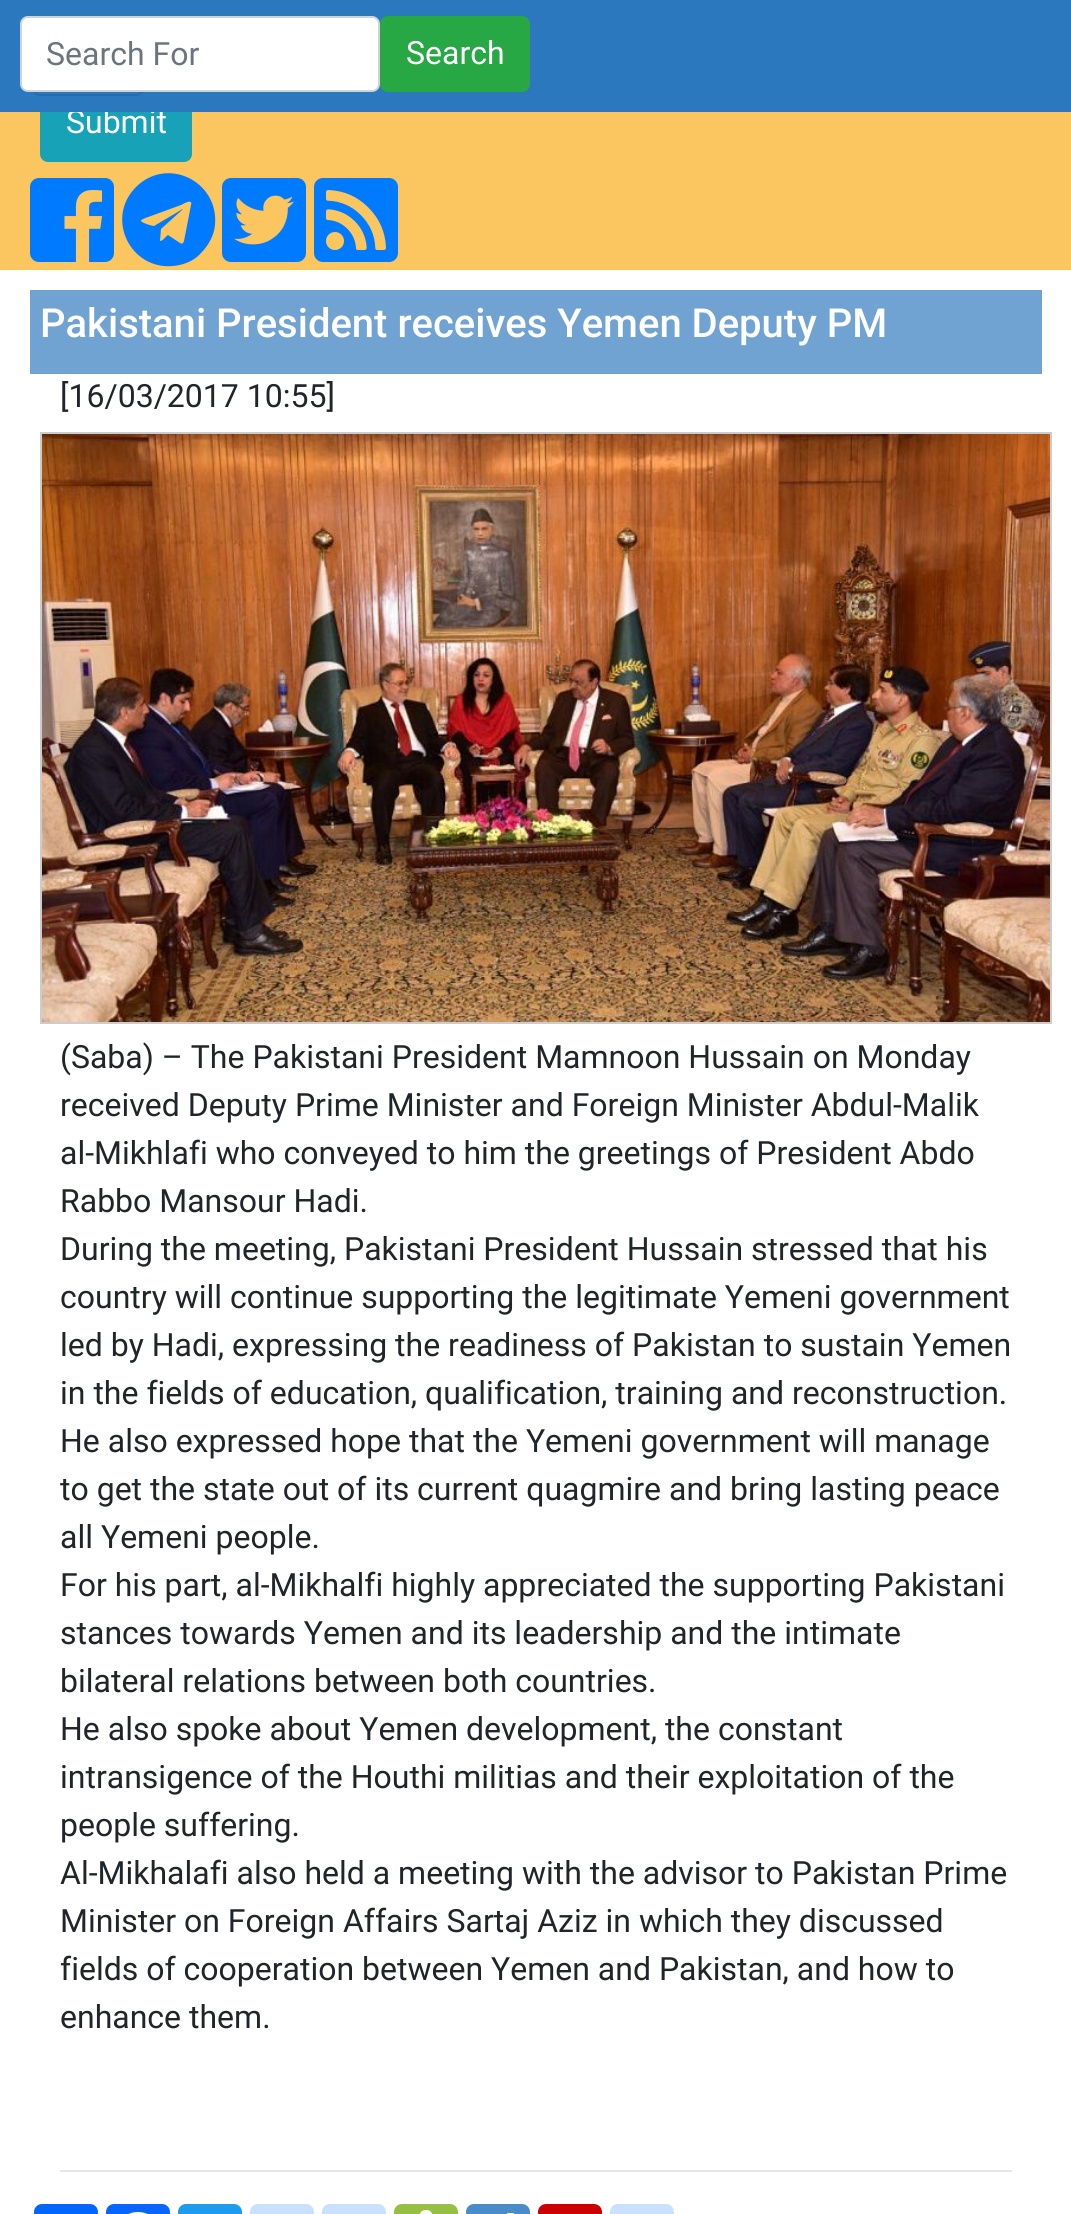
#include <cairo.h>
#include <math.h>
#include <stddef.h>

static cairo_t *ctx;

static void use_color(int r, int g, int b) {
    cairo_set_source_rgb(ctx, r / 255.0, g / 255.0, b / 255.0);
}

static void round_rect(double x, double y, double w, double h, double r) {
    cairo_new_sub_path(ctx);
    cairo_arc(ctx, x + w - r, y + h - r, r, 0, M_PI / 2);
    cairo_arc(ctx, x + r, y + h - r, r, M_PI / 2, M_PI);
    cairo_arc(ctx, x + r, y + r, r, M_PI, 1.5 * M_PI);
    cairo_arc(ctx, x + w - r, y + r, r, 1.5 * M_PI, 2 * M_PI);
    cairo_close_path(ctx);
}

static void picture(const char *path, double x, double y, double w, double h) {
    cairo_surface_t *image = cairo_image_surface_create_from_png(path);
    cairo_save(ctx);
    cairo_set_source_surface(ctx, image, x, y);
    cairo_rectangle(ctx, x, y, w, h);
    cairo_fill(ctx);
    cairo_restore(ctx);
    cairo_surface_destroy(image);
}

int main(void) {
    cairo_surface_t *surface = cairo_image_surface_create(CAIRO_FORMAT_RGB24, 1071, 2214);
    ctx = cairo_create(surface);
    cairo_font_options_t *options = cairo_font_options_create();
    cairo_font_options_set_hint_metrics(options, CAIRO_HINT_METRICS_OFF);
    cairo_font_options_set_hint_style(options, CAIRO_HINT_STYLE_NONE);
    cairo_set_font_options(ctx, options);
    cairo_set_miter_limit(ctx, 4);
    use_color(255, 255, 255);
    cairo_paint(ctx);
    use_color(251, 198, 96);
    cairo_rectangle(ctx, 0, 112, 1071, 158);
    cairo_fill(ctx);
    use_color(23, 162, 184);
    round_rect(41, 87, 150, 74, 7);
    cairo_fill_preserve(ctx);
    cairo_stroke(ctx);
    cairo_select_font_face(ctx, "Roboto", CAIRO_FONT_SLANT_NORMAL, CAIRO_FONT_WEIGHT_NORMAL);
    cairo_set_font_size(ctx, 32);
    use_color(255, 255, 255);
    cairo_move_to(ctx, 66, 133);
    cairo_show_text(ctx, "Submit");
    use_color(43, 120, 191);
    cairo_rectangle(ctx, 0, 0, 1071, 112);
    cairo_fill(ctx);
    round_rect(33, 17, 110, 78, 7);
    use_color(39, 108, 172);
    cairo_stroke(ctx);
    use_color(255, 255, 255);
    round_rect(21, 17, 358, 74, 7);
    cairo_fill_preserve(ctx);
    use_color(206, 212, 218);
    cairo_stroke(ctx);
    use_color(108, 117, 125);
    cairo_move_to(ctx, 46, 65);
    cairo_show_text(ctx, "Search For");
    use_color(40, 167, 69);
    round_rect(381, 17, 148, 74, 7);
    cairo_fill_preserve(ctx);
    cairo_stroke(ctx);
    use_color(255, 255, 255);
    cairo_move_to(ctx, 406, 64);
    cairo_show_text(ctx, "Search");
    picture("img1.png", 30, 178, 84, 84);
    use_color(0, 123, 255);
    cairo_new_path(ctx);
    cairo_move_to(ctx, 136, 187);
    cairo_curve_to(ctx, 167, 156, 219, 181, 215, 225);
    cairo_curve_to(ctx, 214, 235, 209, 245, 201, 253);
    cairo_curve_to(ctx, 194, 261, 184, 265, 173, 266);
    cairo_curve_to(ctx, 130, 270, 105, 218, 136, 187);
    cairo_close_path(ctx);
    cairo_move_to(ctx, 191, 205);
    cairo_curve_to(ctx, 193, 198, 183, 204, 181, 205);
    cairo_line_to(ctx, 151, 216);
    cairo_curve_to(ctx, 145, 218, 140, 220, 141, 221);
    cairo_curve_to(ctx, 142, 223, 152, 226, 154, 226);
    cairo_line_to(ctx, 181, 210);
    cairo_curve_to(ctx, 181, 209, 183, 209, 182, 210);
    cairo_line_to(ctx, 161, 229);
    cairo_line_to(ctx, 160, 241);
    cairo_curve_to(ctx, 163, 241, 166, 236, 168, 235);
    cairo_line_to(ctx, 180, 243);
    cairo_curve_to(ctx, 182, 244, 183, 244, 184, 241);
    cairo_close_path(ctx);
    cairo_fill(ctx);
    picture("img2.png", 222, 178, 84, 84);
    picture("img3.png", 314, 178, 84, 84);
    use_color(112, 163, 210);
    cairo_rectangle(ctx, 30, 290, 1012, 84);
    cairo_fill(ctx);
    cairo_select_font_face(ctx, "Roboto Medium", CAIRO_FONT_SLANT_NORMAL, CAIRO_FONT_WEIGHT_NORMAL);
    cairo_set_font_size(ctx, 40);
    use_color(255, 255, 255);
    cairo_move_to(ctx, 40, 337);
    cairo_show_text(ctx, "Pakistani President receives Yemen Deputy PM");
    cairo_select_font_face(ctx, "Roboto", CAIRO_FONT_SLANT_NORMAL, CAIRO_FONT_WEIGHT_NORMAL);
    cairo_set_font_size(ctx, 32);
    use_color(33, 37, 41);
    cairo_move_to(ctx, 60, 407);
    cairo_show_text(ctx, "[16/03/2017 10:55]");
    cairo_rectangle(ctx, 41, 433, 1010, 590);
    use_color(204, 204, 204);
    cairo_stroke(ctx);
    picture("img4.png", 42, 434, 1008, 588);
    use_color(33, 37, 41);
    cairo_move_to(ctx, 60, 1068);
    cairo_show_text(ctx, "(Saba) – The Pakistani President Mamnoon Hussain on Monday");
    cairo_move_to(ctx, 60, 1116);
    cairo_show_text(ctx, "received Deputy Prime Minister and Foreign Minister Abdul-Malik");
    cairo_move_to(ctx, 60, 1164);
    cairo_show_text(ctx, "al-Mikhlafi who conveyed to him the greetings of President Abdo");
    cairo_move_to(ctx, 60, 1212);
    cairo_show_text(ctx, "Rabbo Mansour Hadi.");
    cairo_move_to(ctx, 60, 1260);
    cairo_show_text(ctx, "During the meeting, Pakistani President Hussain stressed that his");
    cairo_move_to(ctx, 60, 1308);
    cairo_show_text(ctx, "country will continue supporting the legitimate Yemeni government");
    cairo_move_to(ctx, 60, 1356);
    cairo_show_text(ctx, "led by Hadi, expressing the readiness of Pakistan to sustain Yemen");
    cairo_move_to(ctx, 60, 1404);
    cairo_show_text(ctx, "in the fields of education, qualification, training and reconstruction.");
    cairo_move_to(ctx, 60, 1452);
    cairo_show_text(ctx, "He also expressed hope that the Yemeni government will manage");
    cairo_move_to(ctx, 60, 1500);
    cairo_show_text(ctx, "to get the state out of its current quagmire and bring lasting peace");
    cairo_move_to(ctx, 60, 1548);
    cairo_show_text(ctx, "all Yemeni people.");
    cairo_move_to(ctx, 60, 1596);
    cairo_show_text(ctx, "For his part, al-Mikhalfi highly appreciated the supporting Pakistani");
    cairo_move_to(ctx, 60, 1644);
    cairo_show_text(ctx, "stances towards Yemen and its leadership and the intimate");
    cairo_move_to(ctx, 60, 1692);
    cairo_show_text(ctx, "bilateral relations between both countries.");
    cairo_move_to(ctx, 60, 1740);
    cairo_show_text(ctx, "He also spoke about Yemen development, the constant");
    cairo_move_to(ctx, 60, 1788);
    cairo_show_text(ctx, "intransigence of the Houthi militias and their exploitation of the");
    cairo_move_to(ctx, 60, 1836);
    cairo_show_text(ctx, "people suffering.");
    cairo_move_to(ctx, 60, 1884);
    cairo_show_text(ctx, "Al-Mikhalafi also held a meeting with the advisor to Pakistan Prime");
    cairo_move_to(ctx, 60, 1932);
    cairo_show_text(ctx, "Minister on Foreign Affairs Sartaj Aziz in which they discussed");
    cairo_move_to(ctx, 60, 1980);
    cairo_show_text(ctx, "fields of cooperation between Yemen and Pakistan, and how to");
    cairo_move_to(ctx, 60, 2028);
    cairo_show_text(ctx, "enhance them.");
    use_color(230, 230, 230);
    cairo_rectangle(ctx, 60, 2170, 952, 2);
    cairo_fill(ctx);
    use_color(1, 102, 255);
    round_rect(34, 2204, 64, 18, 8);
    cairo_fill(ctx);
    use_color(8, 102, 255);
    round_rect(106, 2204, 64, 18, 8);
    cairo_fill(ctx);
    picture("img5.png", 128, 2212, 20, 2);
    use_color(29, 155, 240);
    round_rect(178, 2204, 64, 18, 8);
    cairo_fill(ctx);
    use_color(202, 224, 255);
    round_rect(250, 2204, 64, 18, 8);
    cairo_fill(ctx);
    round_rect(322, 2204, 64, 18, 8);
    cairo_fill(ctx);
    use_color(150, 192, 68);
    round_rect(394, 2204, 64, 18, 8);
    cairo_fill(ctx);
    picture("img6.png", 419, 2210, 13, 4);
    use_color(74, 139, 202);
    round_rect(466, 2204, 64, 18, 8);
    cairo_fill(ctx);
    picture("img7.png", 507, 2213, 7, 1);
    use_color(204, 0, 0);
    round_rect(538, 2204, 64, 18, 8);
    cairo_fill(ctx);
    use_color(202, 224, 255);
    round_rect(610, 2204, 64, 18, 8);
    cairo_fill(ctx);
    cairo_surface_write_to_png(surface, "result.png");
    cairo_font_options_destroy(options);
    cairo_destroy(ctx);
    cairo_surface_destroy(surface);
    return 0;
}
